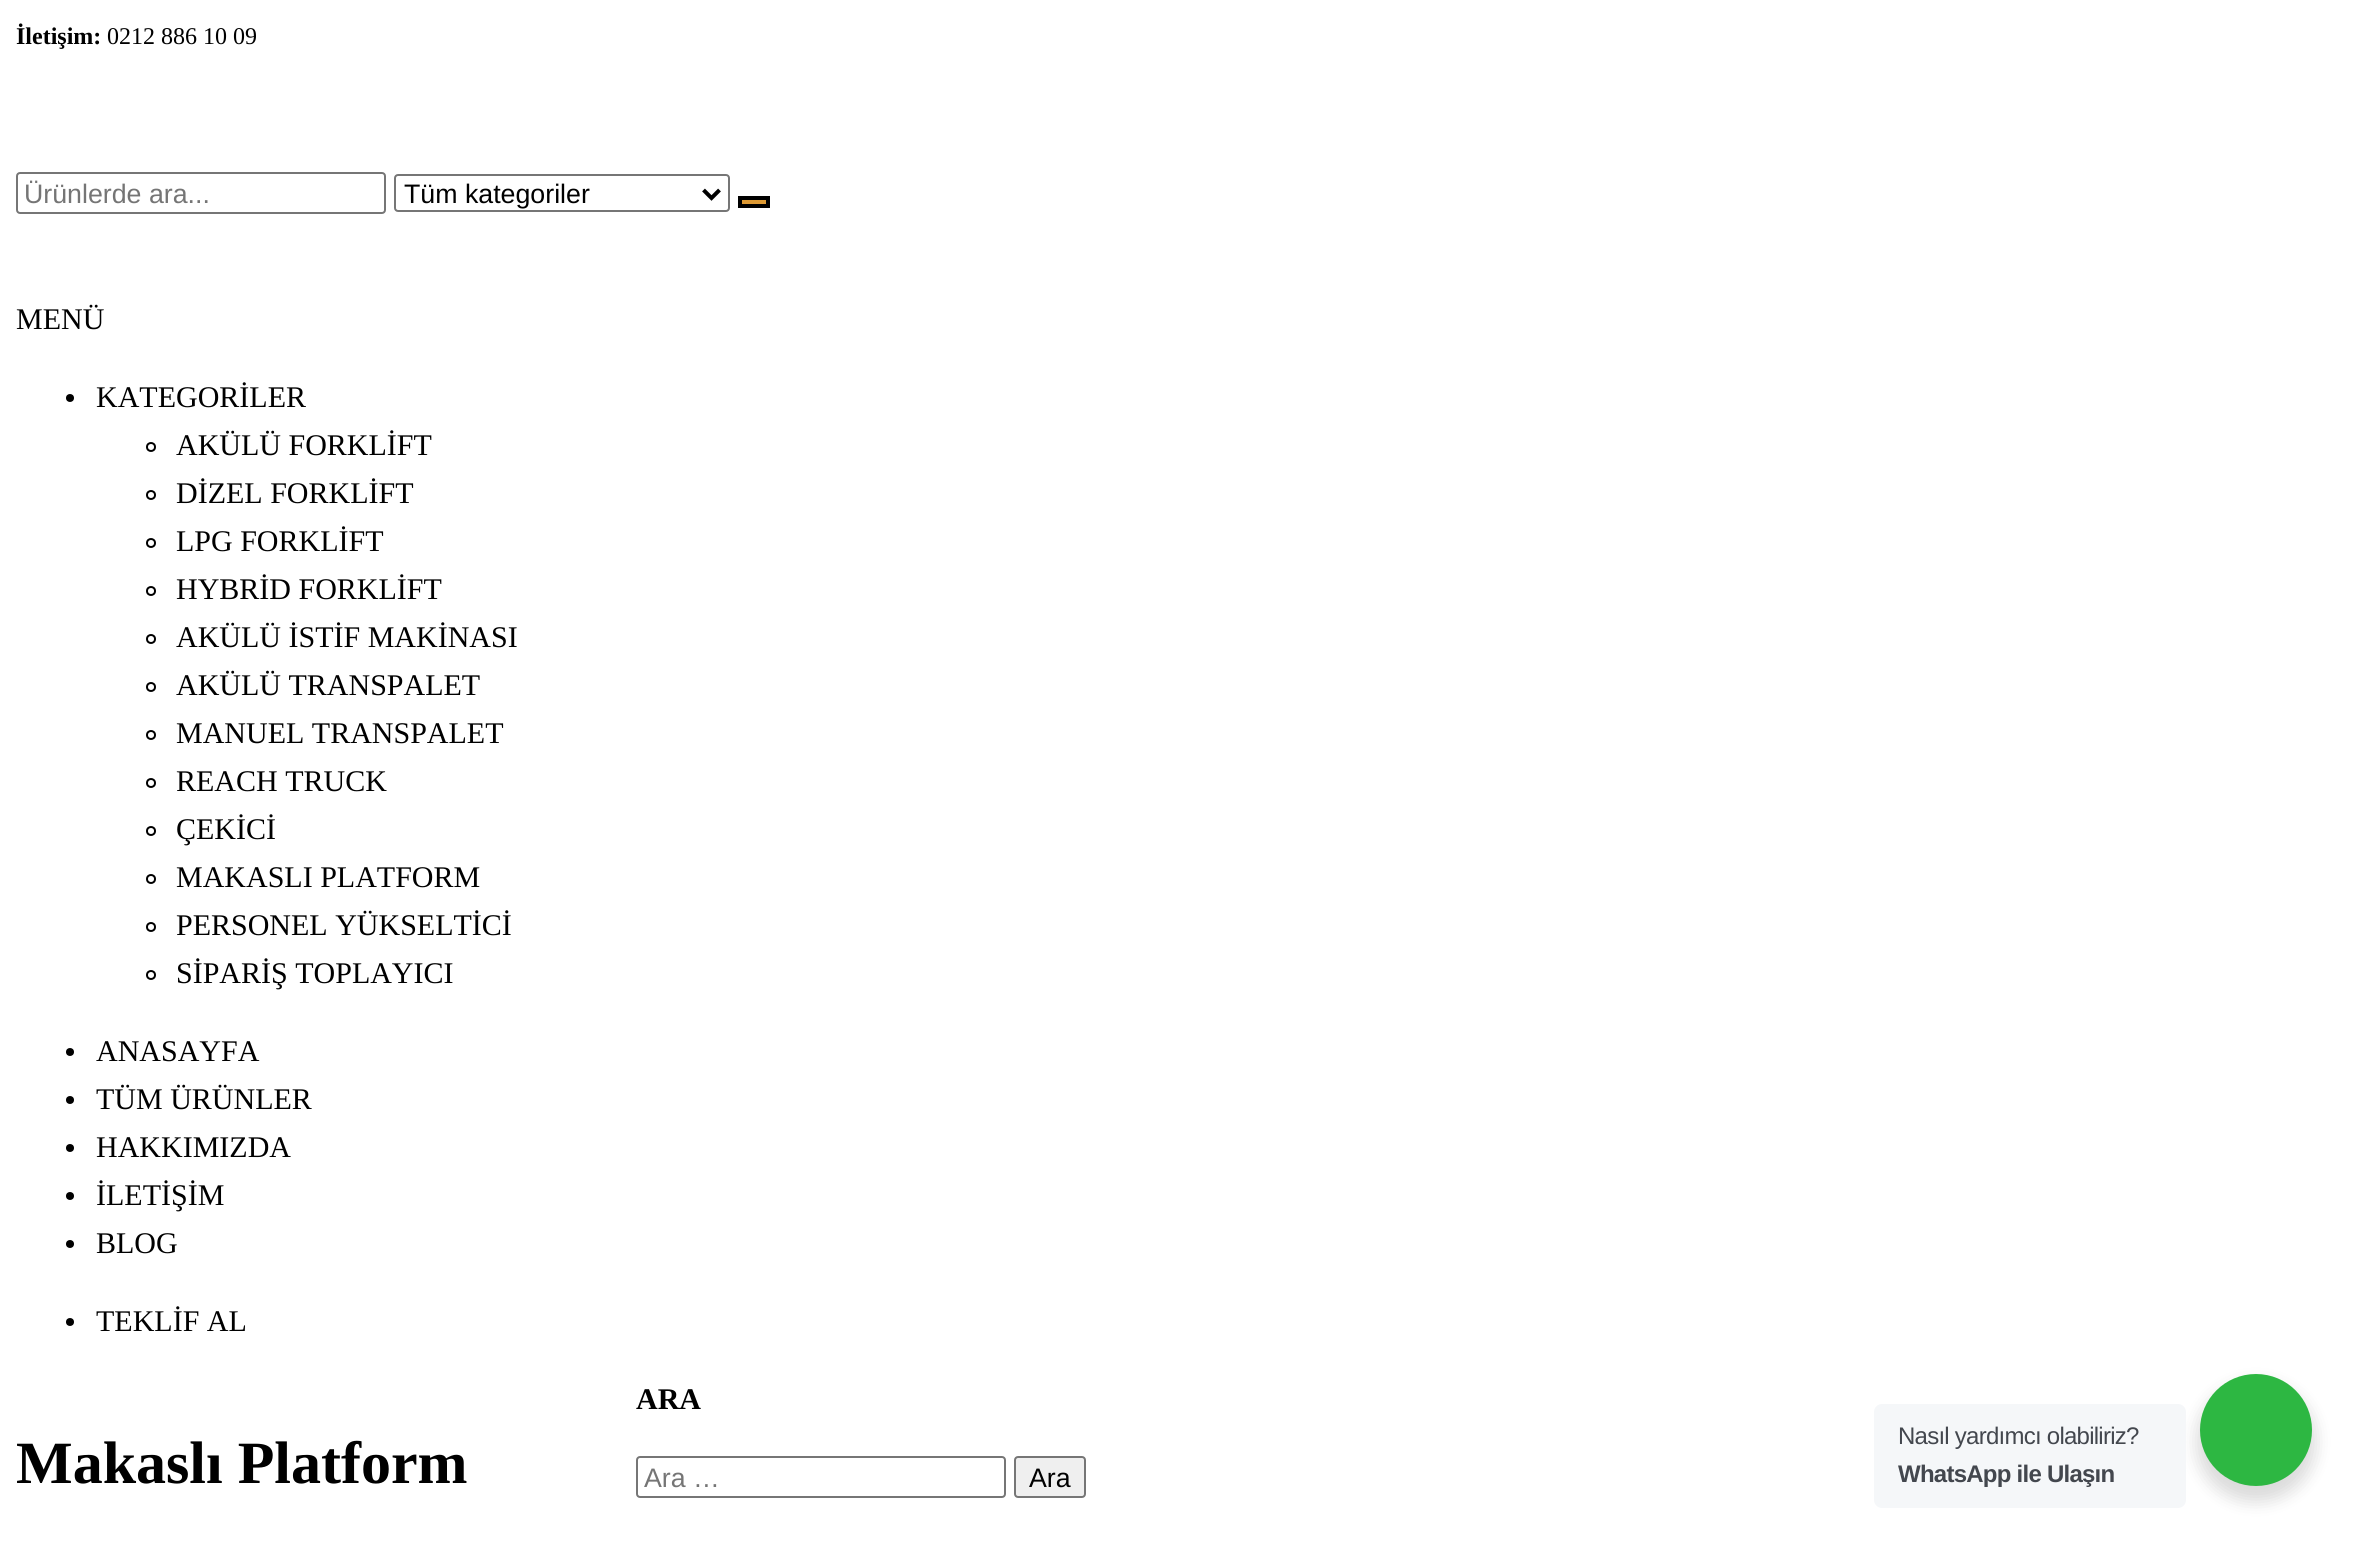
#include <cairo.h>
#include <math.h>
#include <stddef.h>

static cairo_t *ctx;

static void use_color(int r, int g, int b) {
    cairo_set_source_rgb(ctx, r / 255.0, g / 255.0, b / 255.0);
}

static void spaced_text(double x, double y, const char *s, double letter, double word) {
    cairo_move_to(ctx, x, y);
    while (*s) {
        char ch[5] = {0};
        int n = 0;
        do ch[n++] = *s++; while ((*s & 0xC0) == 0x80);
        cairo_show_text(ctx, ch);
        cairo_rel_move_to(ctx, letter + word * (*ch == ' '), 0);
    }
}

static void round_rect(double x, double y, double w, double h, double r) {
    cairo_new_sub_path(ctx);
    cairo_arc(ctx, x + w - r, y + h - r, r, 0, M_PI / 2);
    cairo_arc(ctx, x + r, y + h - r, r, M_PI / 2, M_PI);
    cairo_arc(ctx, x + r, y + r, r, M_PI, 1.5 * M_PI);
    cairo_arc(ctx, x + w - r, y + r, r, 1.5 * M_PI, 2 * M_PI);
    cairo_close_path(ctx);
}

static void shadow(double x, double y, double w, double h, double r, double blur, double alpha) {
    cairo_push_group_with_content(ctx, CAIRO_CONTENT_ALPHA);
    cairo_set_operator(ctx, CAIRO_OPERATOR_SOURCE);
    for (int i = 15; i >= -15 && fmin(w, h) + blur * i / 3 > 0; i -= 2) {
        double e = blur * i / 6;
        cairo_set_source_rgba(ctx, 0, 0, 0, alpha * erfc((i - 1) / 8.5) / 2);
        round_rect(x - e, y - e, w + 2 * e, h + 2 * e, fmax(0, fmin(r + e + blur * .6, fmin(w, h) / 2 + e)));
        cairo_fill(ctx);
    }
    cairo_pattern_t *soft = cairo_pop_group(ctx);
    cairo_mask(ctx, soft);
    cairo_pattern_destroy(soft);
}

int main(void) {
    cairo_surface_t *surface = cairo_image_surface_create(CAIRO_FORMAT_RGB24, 2372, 1546);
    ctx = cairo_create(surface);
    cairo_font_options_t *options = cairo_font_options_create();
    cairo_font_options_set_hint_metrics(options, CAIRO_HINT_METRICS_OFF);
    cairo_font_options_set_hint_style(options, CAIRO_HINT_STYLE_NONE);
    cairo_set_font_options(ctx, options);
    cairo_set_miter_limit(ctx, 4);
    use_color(255, 255, 255);
    cairo_paint(ctx);
    cairo_select_font_face(ctx, "Liberation Serif", CAIRO_FONT_SLANT_NORMAL, CAIRO_FONT_WEIGHT_BOLD);
    cairo_set_font_size(ctx, 24);
    use_color(0, 0, 0);
    cairo_move_to(ctx, 16, 44);
    cairo_show_text(ctx, "İletişim:");
    cairo_select_font_face(ctx, "Liberation Serif", CAIRO_FONT_SLANT_NORMAL, CAIRO_FONT_WEIGHT_NORMAL);
    cairo_move_to(ctx, 107, 44);
    cairo_show_text(ctx, "0212 886 10 09");
    round_rect(17, 173, 368, 40, 3);
    use_color(118, 118, 118);
    cairo_stroke(ctx);
    cairo_select_font_face(ctx, "Liberation Sans", CAIRO_FONT_SLANT_NORMAL, CAIRO_FONT_WEIGHT_NORMAL);
    cairo_set_font_size(ctx, 26.75);
    use_color(117, 117, 117);
    cairo_move_to(ctx, 24, 203);
    cairo_show_text(ctx, "Ürünlerde ara...");
    round_rect(395, 175, 334, 36, 3);
    use_color(118, 118, 118);
    cairo_stroke(ctx);
    cairo_new_path(ctx);
    cairo_move_to(ctx, 703.5, 190);
    cairo_line_to(ctx, 711.5, 198);
    cairo_line_to(ctx, 719.5, 190);
    use_color(0, 0, 0);
    cairo_set_line_width(ctx, 4);
    cairo_stroke(ctx);
    cairo_move_to(ctx, 404, 203);
    cairo_show_text(ctx, "Tüm kategoriler");
    use_color(221, 153, 51);
    cairo_rectangle(ctx, 740, 198, 28, 8);
    cairo_fill_preserve(ctx);
    use_color(0, 0, 0);
    cairo_stroke(ctx);
    cairo_select_font_face(ctx, "Liberation Serif", CAIRO_FONT_SLANT_NORMAL, CAIRO_FONT_WEIGHT_NORMAL);
    cairo_set_font_size(ctx, 30);
    cairo_move_to(ctx, 16, 329);
    cairo_show_text(ctx, "MENÜ");
    cairo_new_path(ctx);
    cairo_arc(ctx, 70, 398, 4, 0, 2 * M_PI);
    cairo_fill(ctx);
    cairo_move_to(ctx, 96, 407);
    cairo_show_text(ctx, "KATEGORİLER");
    cairo_new_path(ctx);
    cairo_arc(ctx, 151, 447, 4, 0, 2 * M_PI);
    cairo_set_line_width(ctx, 2);
    cairo_stroke(ctx);
    cairo_move_to(ctx, 176, 455);
    cairo_show_text(ctx, "AKÜLÜ FORKLİFT");
    cairo_new_path(ctx);
    cairo_arc(ctx, 151, 495, 4, 0, 2 * M_PI);
    cairo_stroke(ctx);
    cairo_move_to(ctx, 176, 503);
    cairo_show_text(ctx, "DİZEL FORKLİFT");
    cairo_new_path(ctx);
    cairo_arc(ctx, 151, 543, 4, 0, 2 * M_PI);
    cairo_stroke(ctx);
    cairo_move_to(ctx, 176, 551);
    cairo_show_text(ctx, "LPG FORKLİFT");
    cairo_new_path(ctx);
    cairo_arc(ctx, 151, 591, 4, 0, 2 * M_PI);
    cairo_stroke(ctx);
    cairo_move_to(ctx, 176, 599);
    cairo_show_text(ctx, "HYBRİD FORKLİFT");
    cairo_new_path(ctx);
    cairo_arc(ctx, 151, 639, 4, 0, 2 * M_PI);
    cairo_stroke(ctx);
    cairo_move_to(ctx, 176, 647);
    cairo_show_text(ctx, "AKÜLÜ İSTİF MAKİNASI");
    cairo_new_path(ctx);
    cairo_arc(ctx, 151, 687, 4, 0, 2 * M_PI);
    cairo_stroke(ctx);
    cairo_move_to(ctx, 176, 695);
    cairo_show_text(ctx, "AKÜLÜ TRANSPALET");
    cairo_new_path(ctx);
    cairo_arc(ctx, 151, 735, 4, 0, 2 * M_PI);
    cairo_stroke(ctx);
    cairo_move_to(ctx, 176, 743);
    cairo_show_text(ctx, "MANUEL TRANSPALET");
    cairo_new_path(ctx);
    cairo_arc(ctx, 151, 783, 4, 0, 2 * M_PI);
    cairo_stroke(ctx);
    cairo_move_to(ctx, 176, 791);
    cairo_show_text(ctx, "REACH TRUCK");
    cairo_new_path(ctx);
    cairo_arc(ctx, 151, 831, 4, 0, 2 * M_PI);
    cairo_stroke(ctx);
    cairo_move_to(ctx, 176, 839);
    cairo_show_text(ctx, "ÇEKİCİ");
    cairo_new_path(ctx);
    cairo_arc(ctx, 151, 879, 4, 0, 2 * M_PI);
    cairo_stroke(ctx);
    cairo_move_to(ctx, 176, 887);
    cairo_show_text(ctx, "MAKASLI PLATFORM");
    cairo_new_path(ctx);
    cairo_arc(ctx, 151, 927, 4, 0, 2 * M_PI);
    cairo_stroke(ctx);
    cairo_move_to(ctx, 176, 935);
    cairo_show_text(ctx, "PERSONEL YÜKSELTİCİ");
    cairo_new_path(ctx);
    cairo_arc(ctx, 151, 975, 4, 0, 2 * M_PI);
    cairo_stroke(ctx);
    cairo_move_to(ctx, 176, 983);
    cairo_show_text(ctx, "SİPARİŞ TOPLAYICI");
    cairo_new_path(ctx);
    cairo_arc(ctx, 70, 1052, 4, 0, 2 * M_PI);
    cairo_fill(ctx);
    cairo_move_to(ctx, 96, 1061);
    cairo_show_text(ctx, "ANASAYFA");
    cairo_new_path(ctx);
    cairo_arc(ctx, 70, 1100, 4, 0, 2 * M_PI);
    cairo_fill(ctx);
    cairo_move_to(ctx, 96, 1109);
    cairo_show_text(ctx, "TÜM ÜRÜNLER");
    cairo_new_path(ctx);
    cairo_arc(ctx, 70, 1148, 4, 0, 2 * M_PI);
    cairo_fill(ctx);
    cairo_move_to(ctx, 96, 1157);
    cairo_show_text(ctx, "HAKKIMIZDA");
    cairo_new_path(ctx);
    cairo_arc(ctx, 70, 1196, 4, 0, 2 * M_PI);
    cairo_fill(ctx);
    cairo_move_to(ctx, 96, 1205);
    cairo_show_text(ctx, "İLETİŞİM");
    cairo_new_path(ctx);
    cairo_arc(ctx, 70, 1244, 4, 0, 2 * M_PI);
    cairo_fill(ctx);
    cairo_move_to(ctx, 96, 1253);
    cairo_show_text(ctx, "BLOG");
    cairo_new_path(ctx);
    cairo_arc(ctx, 70, 1322, 4, 0, 2 * M_PI);
    cairo_fill(ctx);
    cairo_move_to(ctx, 96, 1331);
    cairo_show_text(ctx, "TEKLİF AL");
    cairo_select_font_face(ctx, "Liberation Serif", CAIRO_FONT_SLANT_NORMAL, CAIRO_FONT_WEIGHT_BOLD);
    cairo_set_font_size(ctx, 60);
    cairo_move_to(ctx, 16, 1483);
    cairo_show_text(ctx, "Makaslı Platform");
    cairo_set_font_size(ctx, 30);
    cairo_move_to(ctx, 636, 1409);
    cairo_show_text(ctx, "ARA");
    round_rect(637, 1457, 368, 40, 3);
    use_color(118, 118, 118);
    cairo_stroke(ctx);
    cairo_select_font_face(ctx, "Liberation Sans", CAIRO_FONT_SLANT_NORMAL, CAIRO_FONT_WEIGHT_NORMAL);
    cairo_set_font_size(ctx, 26.75);
    use_color(117, 117, 117);
    cairo_move_to(ctx, 644, 1487);
    cairo_show_text(ctx, "Ara …");
    use_color(239, 239, 239);
    round_rect(1015, 1457, 70, 40, 3);
    cairo_fill_preserve(ctx);
    use_color(118, 118, 118);
    cairo_stroke(ctx);
    use_color(0, 0, 0);
    cairo_move_to(ctx, 1029, 1487);
    cairo_show_text(ctx, "Ara");
    use_color(0, 0, 0);
    shadow(2196, 1382, 120, 120, 60, 8, 0.14);
    use_color(245, 247, 249);
    round_rect(1874, 1404, 312, 104, 8);
    cairo_fill(ctx);
    cairo_set_font_size(ctx, 24);
    use_color(67, 71, 78);
    spaced_text(1898, 1444, "Nasıl yardımcı olabiliriz?", -0.75, 0);
    cairo_select_font_face(ctx, "Liberation Sans", CAIRO_FONT_SLANT_NORMAL, CAIRO_FONT_WEIGHT_BOLD);
    spaced_text(1898, 1482, "WhatsApp ile Ulaşın", -0.75, 0);
    use_color(45, 183, 66);
    cairo_new_path(ctx);
    cairo_arc(ctx, 2256, 1430, 56, 0, 2 * M_PI);
    cairo_fill(ctx);
    cairo_surface_write_to_png(surface, "result.png");
    cairo_font_options_destroy(options);
    cairo_destroy(ctx);
    cairo_surface_destroy(surface);
    return 0;
}
